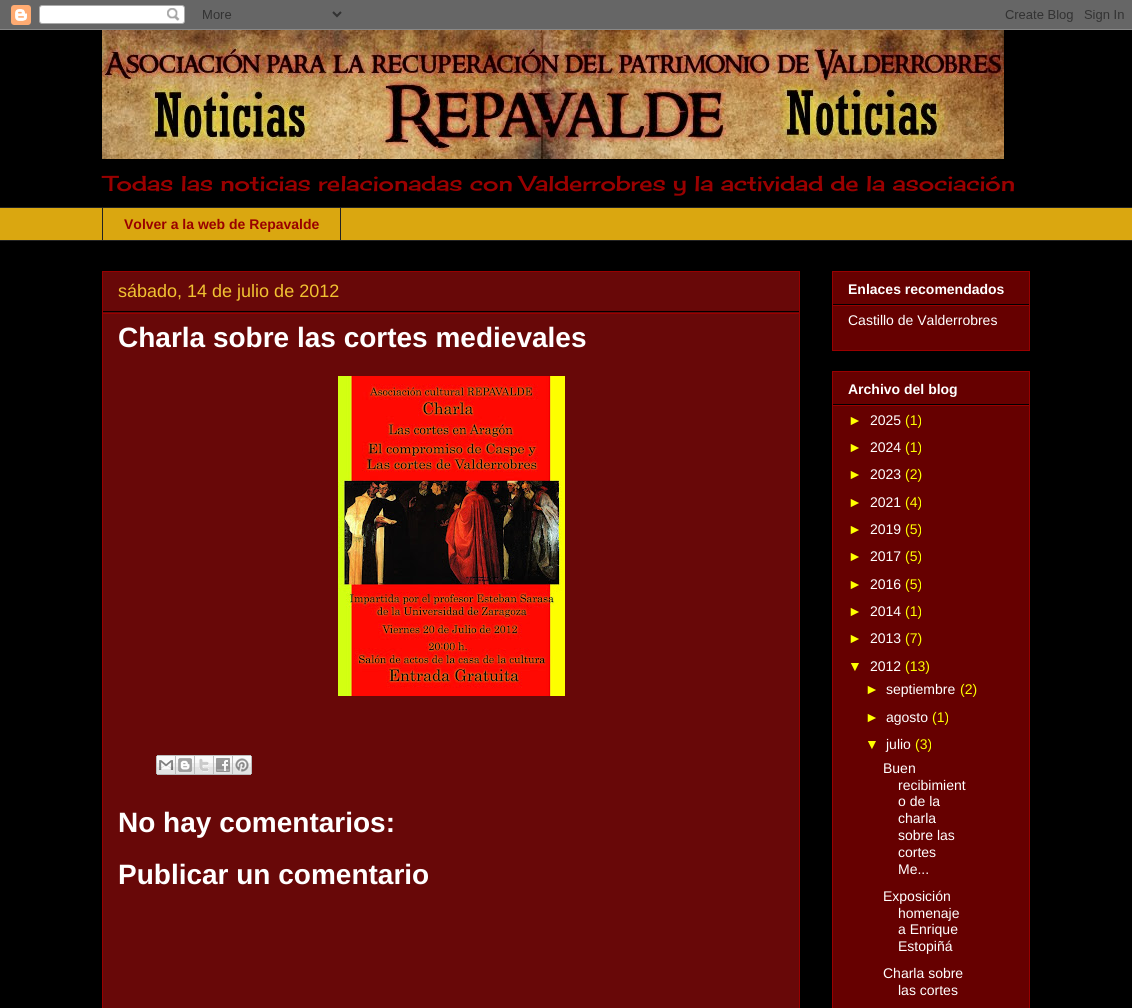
#include <cairo.h>
#include <math.h>
#include <stddef.h>

static cairo_t *ctx;

static void use_color(int r, int g, int b) {
    cairo_set_source_rgb(ctx, r / 255.0, g / 255.0, b / 255.0);
}

static void picture(const char *path, double x, double y, double w, double h) {
    cairo_surface_t *image = cairo_image_surface_create_from_png(path);
    cairo_save(ctx);
    cairo_set_source_surface(ctx, image, x, y);
    cairo_rectangle(ctx, x, y, w, h);
    cairo_fill(ctx);
    cairo_restore(ctx);
    cairo_surface_destroy(image);
}

int main(void) {
    cairo_surface_t *surface = cairo_image_surface_create(CAIRO_FORMAT_RGB24, 1132, 1008);
    ctx = cairo_create(surface);
    cairo_font_options_t *options = cairo_font_options_create();
    cairo_font_options_set_hint_metrics(options, CAIRO_HINT_METRICS_OFF);
    cairo_font_options_set_hint_style(options, CAIRO_HINT_STYLE_NONE);
    cairo_set_font_options(ctx, options);
    cairo_set_miter_limit(ctx, 4);
    use_color(0, 0, 0);
    cairo_paint(ctx);
    picture("img1.png", 0, 0, 1132, 30);
    picture("img2.png", 102, 30, 902, 129);
    cairo_select_font_face(ctx, "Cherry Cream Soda", CAIRO_FONT_SLANT_NORMAL, CAIRO_FONT_WEIGHT_NORMAL);
    cairo_set_font_size(ctx, 21);
    use_color(153, 0, 0);
    cairo_move_to(ctx, 104, 191);
    cairo_show_text(ctx, "Todas las noticias relacionadas con Valderrobres y la actividad de la asociación");
    use_color(218, 167, 16);
    cairo_rectangle(ctx, 0, 208, 1132, 32);
    cairo_fill(ctx);
    use_color(34, 34, 34);
    cairo_rectangle(ctx, 0, 207, 1132, 1);
    cairo_fill(ctx);
    cairo_rectangle(ctx, 102.5, 207.5, 238, 33);
    cairo_set_line_width(ctx, 1);
    cairo_stroke(ctx);
    cairo_select_font_face(ctx, "Liberation Sans", CAIRO_FONT_SLANT_NORMAL, CAIRO_FONT_WEIGHT_BOLD);
    cairo_set_font_size(ctx, 14);
    use_color(153, 0, 0);
    cairo_move_to(ctx, 124, 229);
    cairo_show_text(ctx, "Volver a la web de Repavalde");
    use_color(34, 34, 34);
    cairo_rectangle(ctx, 0, 240, 1132, 1);
    cairo_fill(ctx);
    use_color(104, 8, 8);
    cairo_rectangle(ctx, 102.5, 271.5, 697, 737);
    cairo_fill_preserve(ctx);
    use_color(153, 0, 0);
    cairo_stroke(ctx);
    use_color(0, 0, 0);
    cairo_rectangle(ctx, 103, 311, 696, 1);
    cairo_fill(ctx);
    cairo_select_font_face(ctx, "Liberation Sans", CAIRO_FONT_SLANT_NORMAL, CAIRO_FONT_WEIGHT_NORMAL);
    cairo_set_font_size(ctx, 18);
    use_color(241, 194, 50);
    cairo_move_to(ctx, 118, 297);
    cairo_show_text(ctx, "sábado, 14 de julio de 2012");
    use_color(153, 0, 0);
    cairo_rectangle(ctx, 103, 313, 696, 1);
    cairo_fill(ctx);
    cairo_select_font_face(ctx, "Liberation Sans", CAIRO_FONT_SLANT_NORMAL, CAIRO_FONT_WEIGHT_BOLD);
    cairo_set_font_size(ctx, 28);
    use_color(255, 255, 255);
    cairo_move_to(ctx, 118, 347);
    cairo_show_text(ctx, "Charla sobre las cortes medievales");
    picture("img3.png", 338, 376, 227, 320);
    picture("img4.png", 156, 755, 20, 20);
    picture("img5.png", 176, 755, 19, 20);
    picture("img6.png", 195, 755, 19, 20);
    picture("img7.png", 214, 755, 19, 20);
    picture("img8.png", 233, 755, 19, 20);
    cairo_move_to(ctx, 118, 832);
    cairo_show_text(ctx, "No hay comentarios:");
    cairo_move_to(ctx, 118, 884);
    cairo_show_text(ctx, "Publicar un comentario");
    use_color(102, 0, 0);
    cairo_rectangle(ctx, 832.5, 271.5, 197, 79);
    cairo_fill_preserve(ctx);
    use_color(153, 0, 0);
    cairo_stroke(ctx);
    use_color(0, 0, 0);
    cairo_rectangle(ctx, 833, 304, 196, 1);
    cairo_fill(ctx);
    cairo_set_font_size(ctx, 14);
    use_color(255, 255, 255);
    cairo_move_to(ctx, 848, 294);
    cairo_show_text(ctx, "Enlaces recomendados");
    use_color(153, 0, 0);
    cairo_rectangle(ctx, 833, 305, 196, 1);
    cairo_fill(ctx);
    cairo_select_font_face(ctx, "Liberation Sans", CAIRO_FONT_SLANT_NORMAL, CAIRO_FONT_WEIGHT_NORMAL);
    use_color(255, 255, 255);
    cairo_move_to(ctx, 848, 325);
    cairo_show_text(ctx, "Castillo de Valderrobres");
    use_color(102, 0, 0);
    cairo_rectangle(ctx, 832.5, 371.5, 197, 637);
    cairo_fill_preserve(ctx);
    use_color(153, 0, 0);
    cairo_stroke(ctx);
    use_color(0, 0, 0);
    cairo_rectangle(ctx, 833, 404, 196, 1);
    cairo_fill(ctx);
    cairo_select_font_face(ctx, "Liberation Sans", CAIRO_FONT_SLANT_NORMAL, CAIRO_FONT_WEIGHT_BOLD);
    use_color(255, 255, 255);
    cairo_move_to(ctx, 848, 394);
    cairo_show_text(ctx, "Archivo del blog");
    use_color(153, 0, 0);
    cairo_rectangle(ctx, 833, 405, 196, 1);
    cairo_fill(ctx);
    cairo_select_font_face(ctx, "Liberation Sans", CAIRO_FONT_SLANT_NORMAL, CAIRO_FONT_WEIGHT_NORMAL);
    use_color(255, 255, 0);
    cairo_move_to(ctx, 848, 425);
    cairo_show_text(ctx, "►");
    use_color(255, 255, 255);
    cairo_move_to(ctx, 870, 425);
    cairo_show_text(ctx, "2025");
    use_color(255, 255, 0);
    cairo_move_to(ctx, 905, 425);
    cairo_show_text(ctx, "(1)");
    cairo_move_to(ctx, 848, 452);
    cairo_show_text(ctx, "►");
    use_color(255, 255, 255);
    cairo_move_to(ctx, 870, 452);
    cairo_show_text(ctx, "2024");
    use_color(255, 255, 0);
    cairo_move_to(ctx, 905, 452);
    cairo_show_text(ctx, "(1)");
    cairo_move_to(ctx, 848, 479);
    cairo_show_text(ctx, "►");
    use_color(255, 255, 255);
    cairo_move_to(ctx, 870, 479);
    cairo_show_text(ctx, "2023");
    use_color(255, 255, 0);
    cairo_move_to(ctx, 905, 479);
    cairo_show_text(ctx, "(2)");
    cairo_move_to(ctx, 848, 507);
    cairo_show_text(ctx, "►");
    use_color(255, 255, 255);
    cairo_move_to(ctx, 870, 507);
    cairo_show_text(ctx, "2021");
    use_color(255, 255, 0);
    cairo_move_to(ctx, 905, 507);
    cairo_show_text(ctx, "(4)");
    cairo_move_to(ctx, 848, 534);
    cairo_show_text(ctx, "►");
    use_color(255, 255, 255);
    cairo_move_to(ctx, 870, 534);
    cairo_show_text(ctx, "2019");
    use_color(255, 255, 0);
    cairo_move_to(ctx, 905, 534);
    cairo_show_text(ctx, "(5)");
    cairo_move_to(ctx, 848, 561);
    cairo_show_text(ctx, "►");
    use_color(255, 255, 255);
    cairo_move_to(ctx, 870, 561);
    cairo_show_text(ctx, "2017");
    use_color(255, 255, 0);
    cairo_move_to(ctx, 905, 561);
    cairo_show_text(ctx, "(5)");
    cairo_move_to(ctx, 848, 589);
    cairo_show_text(ctx, "►");
    use_color(255, 255, 255);
    cairo_move_to(ctx, 870, 589);
    cairo_show_text(ctx, "2016");
    use_color(255, 255, 0);
    cairo_move_to(ctx, 905, 589);
    cairo_show_text(ctx, "(5)");
    cairo_move_to(ctx, 848, 616);
    cairo_show_text(ctx, "►");
    use_color(255, 255, 255);
    cairo_move_to(ctx, 870, 616);
    cairo_show_text(ctx, "2014");
    use_color(255, 255, 0);
    cairo_move_to(ctx, 905, 616);
    cairo_show_text(ctx, "(1)");
    cairo_move_to(ctx, 848, 643);
    cairo_show_text(ctx, "►");
    use_color(255, 255, 255);
    cairo_move_to(ctx, 870, 643);
    cairo_show_text(ctx, "2013");
    use_color(255, 255, 0);
    cairo_move_to(ctx, 905, 643);
    cairo_show_text(ctx, "(7)");
    cairo_move_to(ctx, 848, 671);
    cairo_show_text(ctx, "▼");
    use_color(255, 255, 255);
    cairo_move_to(ctx, 870, 671);
    cairo_show_text(ctx, "2012");
    use_color(255, 255, 0);
    cairo_move_to(ctx, 905, 671);
    cairo_show_text(ctx, "(13)");
    cairo_move_to(ctx, 865, 694);
    cairo_show_text(ctx, "►");
    use_color(255, 255, 255);
    cairo_move_to(ctx, 886, 694);
    cairo_show_text(ctx, "septiembre");
    use_color(255, 255, 0);
    cairo_move_to(ctx, 960, 694);
    cairo_show_text(ctx, "(2)");
    cairo_move_to(ctx, 865, 722);
    cairo_show_text(ctx, "►");
    use_color(255, 255, 255);
    cairo_move_to(ctx, 886, 722);
    cairo_show_text(ctx, "agosto");
    use_color(255, 255, 0);
    cairo_move_to(ctx, 932, 722);
    cairo_show_text(ctx, "(1)");
    cairo_move_to(ctx, 865, 749);
    cairo_show_text(ctx, "▼");
    use_color(255, 255, 255);
    cairo_move_to(ctx, 886, 749);
    cairo_show_text(ctx, "julio");
    use_color(255, 255, 0);
    cairo_move_to(ctx, 915, 749);
    cairo_show_text(ctx, "(3)");
    use_color(255, 255, 255);
    cairo_move_to(ctx, 883, 773);
    cairo_show_text(ctx, "Buen");
    cairo_move_to(ctx, 898, 790);
    cairo_show_text(ctx, "recibimient");
    cairo_move_to(ctx, 898, 806);
    cairo_show_text(ctx, "o de la");
    cairo_move_to(ctx, 898, 823);
    cairo_show_text(ctx, "charla");
    cairo_move_to(ctx, 898, 840);
    cairo_show_text(ctx, "sobre las");
    cairo_move_to(ctx, 898, 857);
    cairo_show_text(ctx, "cortes");
    cairo_move_to(ctx, 898, 874);
    cairo_show_text(ctx, "Me...");
    cairo_move_to(ctx, 883, 901);
    cairo_show_text(ctx, "Exposición");
    cairo_move_to(ctx, 898, 918);
    cairo_show_text(ctx, "homenaje");
    cairo_move_to(ctx, 898, 934);
    cairo_show_text(ctx, "a Enrique");
    cairo_move_to(ctx, 898, 951);
    cairo_show_text(ctx, "Estopiñá");
    cairo_move_to(ctx, 883, 978);
    cairo_show_text(ctx, "Charla sobre");
    cairo_move_to(ctx, 898, 995);
    cairo_show_text(ctx, "las cortes");
    cairo_surface_write_to_png(surface, "result.png");
    cairo_font_options_destroy(options);
    cairo_destroy(ctx);
    cairo_surface_destroy(surface);
    return 0;
}
